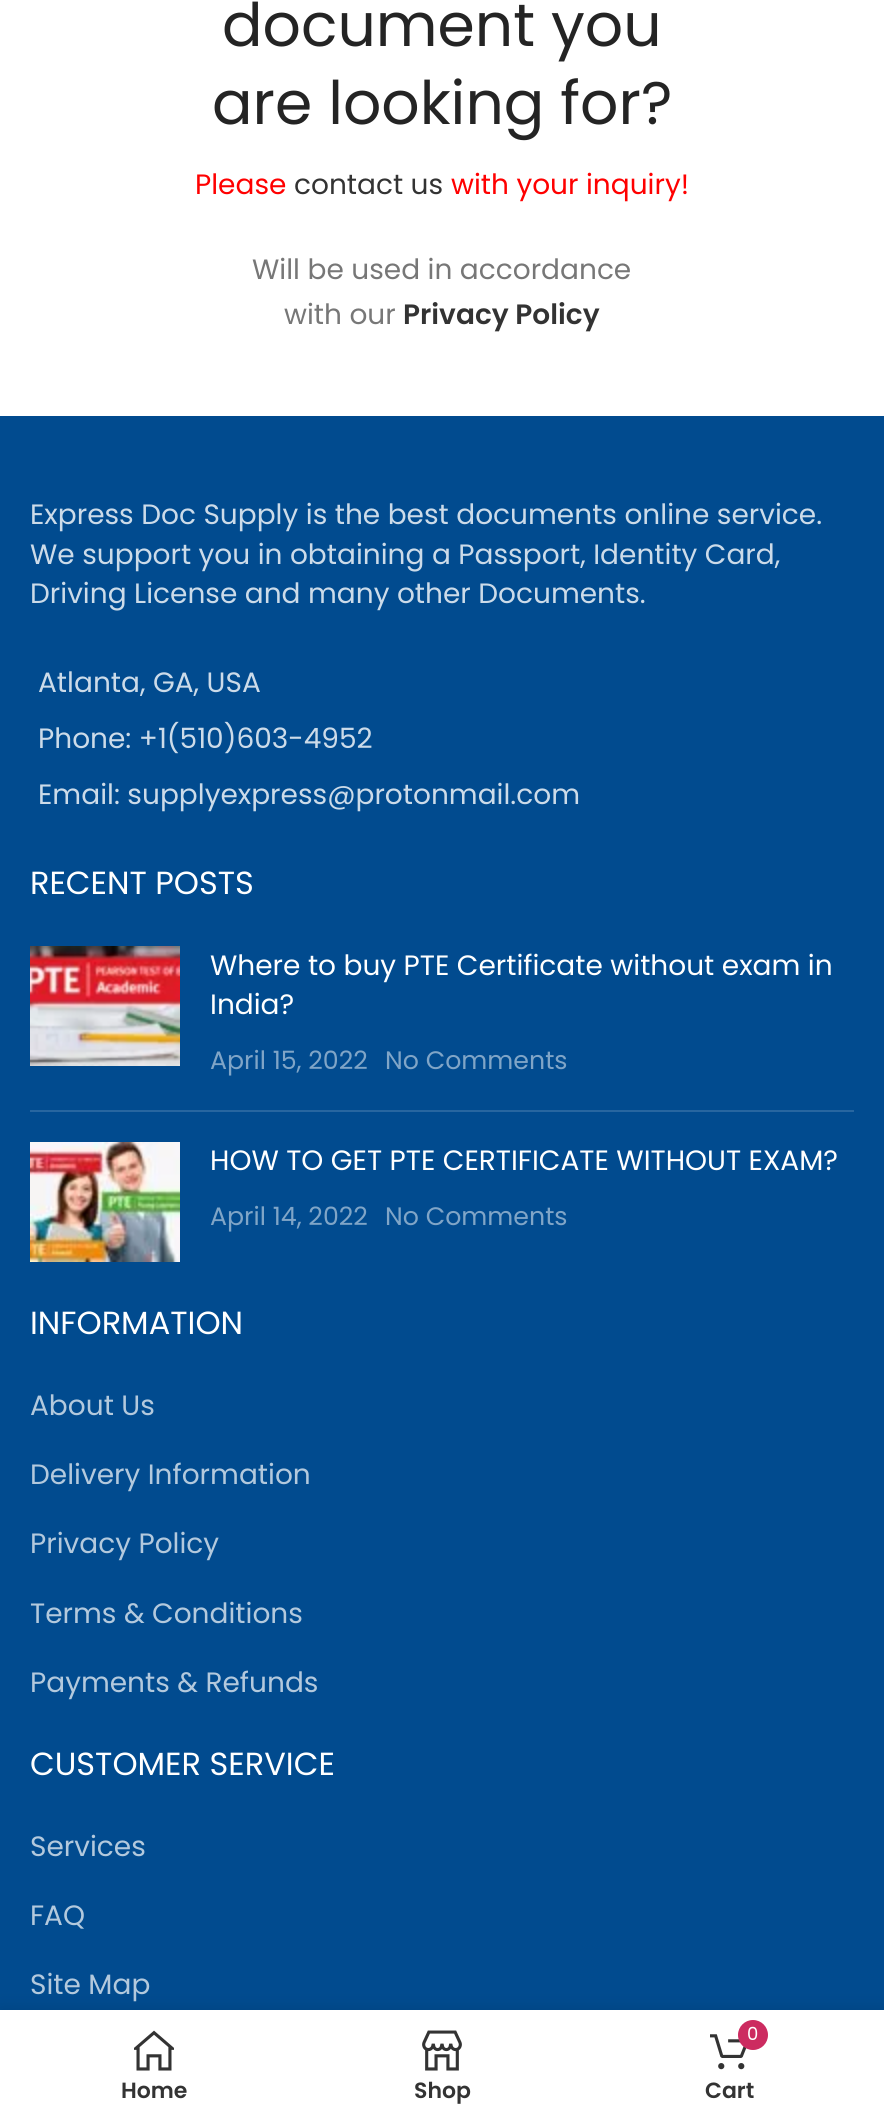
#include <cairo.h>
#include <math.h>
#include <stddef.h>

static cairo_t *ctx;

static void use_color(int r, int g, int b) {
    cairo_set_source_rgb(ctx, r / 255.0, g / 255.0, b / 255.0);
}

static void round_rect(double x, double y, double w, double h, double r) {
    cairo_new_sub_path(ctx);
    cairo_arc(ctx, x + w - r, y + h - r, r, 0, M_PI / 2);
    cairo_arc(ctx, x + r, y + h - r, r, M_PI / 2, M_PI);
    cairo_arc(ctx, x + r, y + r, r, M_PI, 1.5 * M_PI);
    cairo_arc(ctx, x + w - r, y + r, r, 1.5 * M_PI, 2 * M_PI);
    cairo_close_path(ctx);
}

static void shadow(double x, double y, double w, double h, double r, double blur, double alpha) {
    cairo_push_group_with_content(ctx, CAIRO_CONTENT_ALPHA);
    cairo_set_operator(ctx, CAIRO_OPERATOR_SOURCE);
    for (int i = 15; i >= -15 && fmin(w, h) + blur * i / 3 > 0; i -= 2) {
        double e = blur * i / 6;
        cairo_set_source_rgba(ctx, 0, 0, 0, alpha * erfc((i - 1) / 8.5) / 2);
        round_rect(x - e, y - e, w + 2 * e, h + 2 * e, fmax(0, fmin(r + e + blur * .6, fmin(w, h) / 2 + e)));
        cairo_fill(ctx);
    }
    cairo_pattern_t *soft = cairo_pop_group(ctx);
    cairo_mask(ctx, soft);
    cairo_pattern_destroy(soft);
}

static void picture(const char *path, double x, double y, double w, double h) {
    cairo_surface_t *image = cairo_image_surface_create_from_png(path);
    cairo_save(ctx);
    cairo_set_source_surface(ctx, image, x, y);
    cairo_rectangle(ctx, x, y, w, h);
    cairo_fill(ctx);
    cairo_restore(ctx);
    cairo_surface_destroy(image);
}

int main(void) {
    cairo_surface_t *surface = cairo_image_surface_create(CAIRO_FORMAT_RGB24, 884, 2120);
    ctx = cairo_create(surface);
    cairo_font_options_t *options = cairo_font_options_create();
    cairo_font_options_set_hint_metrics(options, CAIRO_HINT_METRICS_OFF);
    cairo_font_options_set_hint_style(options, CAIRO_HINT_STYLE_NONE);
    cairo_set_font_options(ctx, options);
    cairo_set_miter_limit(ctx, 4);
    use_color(255, 255, 255);
    cairo_paint(ctx);
    cairo_select_font_face(ctx, "Poppins", CAIRO_FONT_SLANT_NORMAL, CAIRO_FONT_WEIGHT_NORMAL);
    cairo_set_font_size(ctx, 60);
    use_color(36, 36, 36);
    cairo_move_to(ctx, 222, 46);
    cairo_show_text(ctx, "document you");
    cairo_move_to(ctx, 212, 124);
    cairo_show_text(ctx, "are looking for?");
    cairo_set_font_size(ctx, 28);
    use_color(255, 0, 0);
    cairo_move_to(ctx, 195, 194);
    cairo_show_text(ctx, "Please");
    use_color(51, 51, 51);
    cairo_move_to(ctx, 294, 194);
    cairo_show_text(ctx, "contact us");
    use_color(255, 0, 0);
    cairo_move_to(ctx, 451, 194);
    cairo_show_text(ctx, "with your inquiry!");
    use_color(119, 119, 119);
    cairo_move_to(ctx, 252, 279);
    cairo_show_text(ctx, "Will be used in accordance");
    cairo_move_to(ctx, 284, 324);
    cairo_show_text(ctx, "with our");
    cairo_select_font_face(ctx, "Poppins SemiBold", CAIRO_FONT_SLANT_NORMAL, CAIRO_FONT_WEIGHT_NORMAL);
    use_color(51, 51, 51);
    cairo_move_to(ctx, 403, 324);
    cairo_show_text(ctx, "Privacy Policy");
    use_color(1, 75, 143);
    cairo_rectangle(ctx, 0, 416, 884, 1594);
    cairo_fill(ctx);
    cairo_select_font_face(ctx, "Poppins", CAIRO_FONT_SLANT_NORMAL, CAIRO_FONT_WEIGHT_NORMAL);
    use_color(204, 219, 233);
    cairo_move_to(ctx, 30, 524);
    cairo_show_text(ctx, "Express Doc Supply is the best documents online service.");
    cairo_move_to(ctx, 30, 564);
    cairo_show_text(ctx, "We support you in obtaining a Passport, Identity Card,");
    cairo_move_to(ctx, 30, 603);
    cairo_show_text(ctx, "Driving License and many other Documents.");
    cairo_move_to(ctx, 38, 692);
    cairo_show_text(ctx, "Atlanta, GA, USA");
    cairo_move_to(ctx, 38, 748);
    cairo_show_text(ctx, "Phone: +1(510)603-4952");
    cairo_move_to(ctx, 38, 804);
    cairo_show_text(ctx, "Email: supplyexpress@protonmail.com");
    cairo_set_font_size(ctx, 32);
    use_color(255, 255, 255);
    cairo_move_to(ctx, 30, 894);
    cairo_show_text(ctx, "RECENT POSTS");
    use_color(39, 102, 160);
    cairo_rectangle(ctx, 30, 1110, 824, 2);
    cairo_fill(ctx);
    picture("img1.png", 30, 946, 150, 120);
    cairo_set_font_size(ctx, 28);
    use_color(255, 255, 255);
    cairo_move_to(ctx, 210, 975);
    cairo_show_text(ctx, "Where to buy PTE Certificate without exam in");
    cairo_move_to(ctx, 210, 1014);
    cairo_show_text(ctx, "India?");
    cairo_set_font_size(ctx, 25.25);
    use_color(128, 165, 199);
    cairo_move_to(ctx, 210, 1069);
    cairo_show_text(ctx, "April 15, 2022");
    cairo_move_to(ctx, 385, 1069);
    cairo_show_text(ctx, "No Comments");
    picture("img2.png", 30, 1142, 150, 120);
    cairo_set_font_size(ctx, 28);
    use_color(255, 255, 255);
    cairo_move_to(ctx, 210, 1170);
    cairo_show_text(ctx, "HOW TO GET PTE CERTIFICATE WITHOUT EXAM?");
    cairo_set_font_size(ctx, 25.25);
    use_color(128, 165, 199);
    cairo_move_to(ctx, 210, 1225);
    cairo_show_text(ctx, "April 14, 2022");
    cairo_move_to(ctx, 385, 1225);
    cairo_show_text(ctx, "No Comments");
    cairo_set_font_size(ctx, 32);
    use_color(255, 255, 255);
    cairo_move_to(ctx, 30, 1334);
    cairo_show_text(ctx, "INFORMATION");
    cairo_set_font_size(ctx, 28);
    use_color(179, 201, 221);
    cairo_move_to(ctx, 30, 1415);
    cairo_show_text(ctx, "About Us");
    cairo_move_to(ctx, 30, 1484);
    cairo_show_text(ctx, "Delivery Information");
    cairo_move_to(ctx, 30, 1553);
    cairo_show_text(ctx, "Privacy Policy");
    cairo_move_to(ctx, 30, 1623);
    cairo_show_text(ctx, "Terms & Conditions");
    cairo_move_to(ctx, 30, 1692);
    cairo_show_text(ctx, "Payments & Refunds");
    cairo_set_font_size(ctx, 32);
    use_color(255, 255, 255);
    cairo_move_to(ctx, 30, 1775);
    cairo_show_text(ctx, "CUSTOMER SERVICE");
    cairo_set_font_size(ctx, 28);
    use_color(179, 201, 221);
    cairo_move_to(ctx, 30, 1856);
    cairo_show_text(ctx, "Services");
    cairo_move_to(ctx, 30, 1925);
    cairo_show_text(ctx, "FAQ");
    cairo_move_to(ctx, 30, 1994);
    cairo_show_text(ctx, "Site Map");
    use_color(0, 0, 0);
    shadow(0, 2010, 884, 110, 0, 9, 0.12);
    use_color(255, 255, 255);
    cairo_rectangle(ctx, 0, 2010, 884, 110);
    cairo_fill(ctx);
    picture("img3.png", 134, 2030, 40, 41);
    cairo_select_font_face(ctx, "Poppins SemiBold", CAIRO_FONT_SLANT_NORMAL, CAIRO_FONT_WEIGHT_NORMAL);
    cairo_set_font_size(ctx, 22);
    use_color(51, 51, 51);
    cairo_move_to(ctx, 121, 2098);
    cairo_show_text(ctx, "Home");
    picture("img4.png", 422, 2030, 40, 41);
    cairo_move_to(ctx, 414, 2098);
    cairo_show_text(ctx, "Shop");
    picture("img5.png", 710, 2034, 37, 36);
    use_color(204, 43, 96);
    cairo_arc(ctx, 753, 2035, 15, 0, 2 * M_PI);
    cairo_fill(ctx);
    cairo_select_font_face(ctx, "Poppins", CAIRO_FONT_SLANT_NORMAL, CAIRO_FONT_WEIGHT_NORMAL);
    cairo_set_font_size(ctx, 18);
    use_color(255, 255, 255);
    cairo_move_to(ctx, 747, 2040);
    cairo_show_text(ctx, "0");
    cairo_select_font_face(ctx, "Poppins SemiBold", CAIRO_FONT_SLANT_NORMAL, CAIRO_FONT_WEIGHT_NORMAL);
    cairo_set_font_size(ctx, 22);
    use_color(51, 51, 51);
    cairo_move_to(ctx, 705, 2098);
    cairo_show_text(ctx, "Cart");
    cairo_surface_write_to_png(surface, "result.png");
    cairo_font_options_destroy(options);
    cairo_destroy(ctx);
    cairo_surface_destroy(surface);
    return 0;
}
